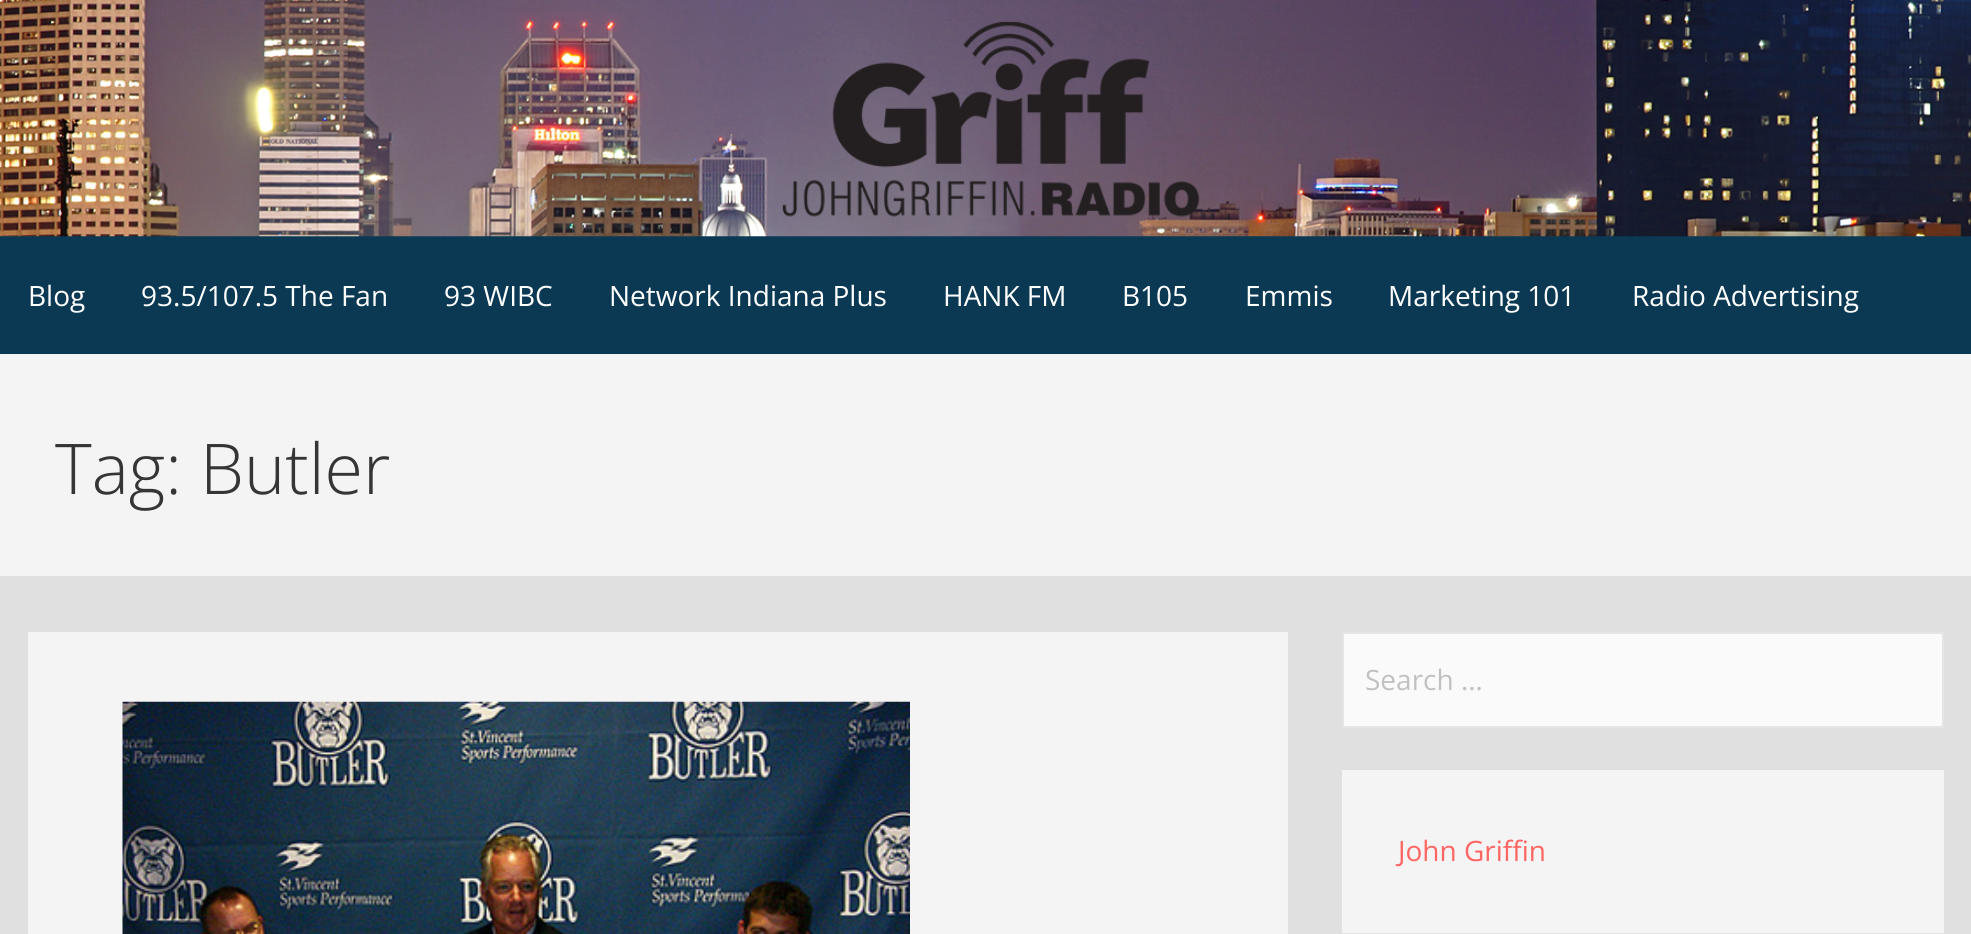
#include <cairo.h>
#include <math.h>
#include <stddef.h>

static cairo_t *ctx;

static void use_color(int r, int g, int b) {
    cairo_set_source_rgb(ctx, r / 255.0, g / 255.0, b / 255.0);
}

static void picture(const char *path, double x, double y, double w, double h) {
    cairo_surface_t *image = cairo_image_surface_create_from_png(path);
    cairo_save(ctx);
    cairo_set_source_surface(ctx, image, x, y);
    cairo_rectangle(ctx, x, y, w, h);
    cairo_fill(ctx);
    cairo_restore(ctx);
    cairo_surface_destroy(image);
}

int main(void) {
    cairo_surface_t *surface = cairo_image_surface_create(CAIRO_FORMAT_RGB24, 1971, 934);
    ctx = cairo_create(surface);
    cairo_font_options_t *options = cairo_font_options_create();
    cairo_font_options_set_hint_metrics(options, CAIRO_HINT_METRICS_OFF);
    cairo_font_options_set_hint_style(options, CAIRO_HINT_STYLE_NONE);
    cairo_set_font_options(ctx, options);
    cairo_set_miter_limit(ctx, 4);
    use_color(224, 224, 224);
    cairo_paint(ctx);
    use_color(11, 57, 84);
    cairo_rectangle(ctx, 0, 236, 1971, 118);
    cairo_fill(ctx);
    picture("img1.png", 0, 0, 1971, 237);
    cairo_select_font_face(ctx, "Open Sans", CAIRO_FONT_SLANT_NORMAL, CAIRO_FONT_WEIGHT_NORMAL);
    cairo_set_font_size(ctx, 28);
    use_color(255, 255, 255);
    cairo_move_to(ctx, 28, 306);
    cairo_show_text(ctx, "Blog");
    cairo_move_to(ctx, 141, 306);
    cairo_show_text(ctx, "93.5/107.5 The Fan");
    cairo_move_to(ctx, 444, 306);
    cairo_show_text(ctx, "93 WIBC");
    cairo_move_to(ctx, 609, 306);
    cairo_show_text(ctx, "Network Indiana Plus");
    cairo_move_to(ctx, 943, 306);
    cairo_show_text(ctx, "HANK FM");
    cairo_move_to(ctx, 1122, 306);
    cairo_show_text(ctx, "B105");
    cairo_move_to(ctx, 1245, 306);
    cairo_show_text(ctx, "Emmis");
    cairo_move_to(ctx, 1388, 306);
    cairo_show_text(ctx, "Marketing 101");
    cairo_move_to(ctx, 1632, 306);
    cairo_show_text(ctx, "Radio Advertising");
    use_color(244, 244, 244);
    cairo_rectangle(ctx, 0, 354, 1971, 222);
    cairo_fill(ctx);
    cairo_select_font_face(ctx, "Open Sans Light", CAIRO_FONT_SLANT_NORMAL, CAIRO_FONT_WEIGHT_NORMAL);
    cairo_set_font_size(ctx, 70);
    use_color(53, 53, 53);
    cairo_move_to(ctx, 55, 494);
    cairo_show_text(ctx, "Tag: Butler");
    use_color(244, 244, 244);
    cairo_rectangle(ctx, 28, 632, 1260, 302);
    cairo_fill(ctx);
    picture("img2.png", 122, 701, 788, 233);
    use_color(250, 250, 250);
    cairo_rectangle(ctx, 1343, 633, 600, 94);
    cairo_fill_preserve(ctx);
    use_color(229, 229, 229);
    cairo_stroke(ctx);
    cairo_select_font_face(ctx, "Open Sans", CAIRO_FONT_SLANT_NORMAL, CAIRO_FONT_WEIGHT_NORMAL);
    cairo_set_font_size(ctx, 28);
    use_color(193, 193, 193);
    cairo_move_to(ctx, 1365, 690);
    cairo_show_text(ctx, "Search …");
    use_color(244, 244, 244);
    cairo_rectangle(ctx, 1342, 770, 602, 163);
    cairo_fill(ctx);
    use_color(255, 102, 99);
    cairo_move_to(ctx, 1398, 861);
    cairo_show_text(ctx, "John Griffin");
    cairo_surface_write_to_png(surface, "result.png");
    cairo_font_options_destroy(options);
    cairo_destroy(ctx);
    cairo_surface_destroy(surface);
    return 0;
}
